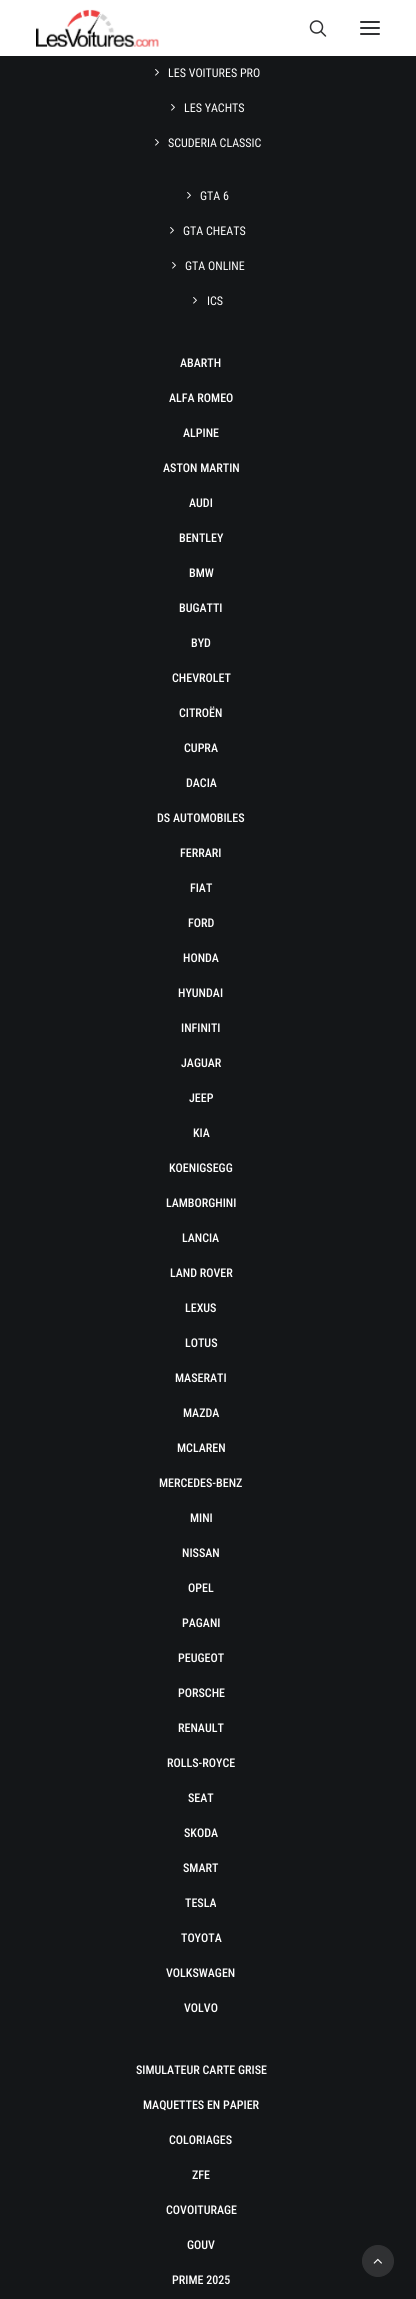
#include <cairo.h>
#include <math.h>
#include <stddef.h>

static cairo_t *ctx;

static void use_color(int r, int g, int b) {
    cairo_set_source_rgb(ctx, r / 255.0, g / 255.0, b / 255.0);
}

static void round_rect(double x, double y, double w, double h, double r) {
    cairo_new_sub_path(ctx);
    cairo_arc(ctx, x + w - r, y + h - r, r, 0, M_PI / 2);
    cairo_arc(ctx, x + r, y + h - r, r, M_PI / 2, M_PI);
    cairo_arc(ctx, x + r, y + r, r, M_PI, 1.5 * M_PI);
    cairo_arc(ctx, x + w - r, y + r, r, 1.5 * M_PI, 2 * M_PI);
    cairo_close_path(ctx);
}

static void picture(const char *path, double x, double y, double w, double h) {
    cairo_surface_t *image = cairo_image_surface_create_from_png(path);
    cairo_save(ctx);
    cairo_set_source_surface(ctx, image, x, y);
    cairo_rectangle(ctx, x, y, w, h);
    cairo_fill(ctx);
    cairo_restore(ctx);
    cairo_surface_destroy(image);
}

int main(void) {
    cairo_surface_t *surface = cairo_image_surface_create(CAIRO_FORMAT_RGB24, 416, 2299);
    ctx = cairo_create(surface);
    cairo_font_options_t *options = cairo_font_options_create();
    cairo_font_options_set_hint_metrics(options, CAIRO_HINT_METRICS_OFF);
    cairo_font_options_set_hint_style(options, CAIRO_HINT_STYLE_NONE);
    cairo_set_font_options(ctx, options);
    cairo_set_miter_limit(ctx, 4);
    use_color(20, 22, 24);
    cairo_paint(ctx);
    use_color(255, 255, 255);
    cairo_rectangle(ctx, 0, 0, 416, 56);
    cairo_fill(ctx);
    picture("img1.png", 36, 9, 123, 38);
    picture("img2.png", 309, 20, 18, 17);
    use_color(48, 49, 51);
    round_rect(360, 27, 20, 2, 1);
    cairo_fill(ctx);
    round_rect(360, 21, 20, 2, 1);
    cairo_fill(ctx);
    round_rect(360, 33, 20, 2, 1);
    cairo_fill(ctx);
    picture("img3.png", 155, 69, 4, 7);
    cairo_select_font_face(ctx, "Roboto Condensed", CAIRO_FONT_SLANT_NORMAL, CAIRO_FONT_WEIGHT_NORMAL);
    cairo_set_font_size(ctx, 12);
    use_color(255, 255, 255);
    cairo_move_to(ctx, 168, 77);
    cairo_show_text(ctx, "LES VOITURES PRO");
    picture("img3.png", 171, 104, 4, 7);
    cairo_move_to(ctx, 184, 112);
    cairo_show_text(ctx, "LES YACHTS");
    picture("img3.png", 155, 139, 4, 7);
    cairo_move_to(ctx, 168, 147);
    cairo_show_text(ctx, "SCUDERIA CLASSIC");
    picture("img3.png", 187, 192, 4, 7);
    cairo_move_to(ctx, 200, 200);
    cairo_show_text(ctx, "GTA 6");
    picture("img3.png", 170, 227, 4, 7);
    cairo_move_to(ctx, 183, 235);
    cairo_show_text(ctx, "GTA CHEATS");
    picture("img3.png", 172, 262, 4, 7);
    cairo_move_to(ctx, 185, 270);
    cairo_show_text(ctx, "GTA ONLINE");
    picture("img3.png", 193, 297, 4, 7);
    cairo_move_to(ctx, 207, 305);
    cairo_show_text(ctx, "ICS");
    cairo_select_font_face(ctx, "Roboto Condensed Medium", CAIRO_FONT_SLANT_NORMAL, CAIRO_FONT_WEIGHT_NORMAL);
    cairo_move_to(ctx, 180, 367);
    cairo_show_text(ctx, "ABARTH");
    cairo_move_to(ctx, 169, 402);
    cairo_show_text(ctx, "ALFA ROMEO");
    cairo_move_to(ctx, 183, 437);
    cairo_show_text(ctx, "ALPINE");
    cairo_move_to(ctx, 163, 472);
    cairo_show_text(ctx, "ASTON MARTIN");
    cairo_move_to(ctx, 189, 507);
    cairo_show_text(ctx, "AUDI");
    cairo_move_to(ctx, 179, 542);
    cairo_show_text(ctx, "BENTLEY");
    cairo_move_to(ctx, 189, 577);
    cairo_show_text(ctx, "BMW");
    cairo_move_to(ctx, 179, 612);
    cairo_show_text(ctx, "BUGATTI");
    cairo_move_to(ctx, 191, 647);
    cairo_show_text(ctx, "BYD");
    cairo_move_to(ctx, 172, 682);
    cairo_show_text(ctx, "CHEVROLET");
    cairo_move_to(ctx, 179, 717);
    cairo_show_text(ctx, "CITROËN");
    cairo_move_to(ctx, 184, 752);
    cairo_show_text(ctx, "CUPRA");
    cairo_move_to(ctx, 186, 787);
    cairo_show_text(ctx, "DACIA");
    cairo_move_to(ctx, 157, 822);
    cairo_show_text(ctx, "DS AUTOMOBILES");
    cairo_move_to(ctx, 180, 857);
    cairo_show_text(ctx, "FERRARI");
    cairo_move_to(ctx, 190, 892);
    cairo_show_text(ctx, "FIAT");
    cairo_move_to(ctx, 188, 927);
    cairo_show_text(ctx, "FORD");
    cairo_move_to(ctx, 183, 962);
    cairo_show_text(ctx, "HONDA");
    cairo_move_to(ctx, 178, 997);
    cairo_show_text(ctx, "HYUNDAI");
    cairo_move_to(ctx, 181, 1032);
    cairo_show_text(ctx, "INFINITI");
    cairo_move_to(ctx, 181, 1067);
    cairo_show_text(ctx, "JAGUAR");
    cairo_move_to(ctx, 189, 1102);
    cairo_show_text(ctx, "JEEP");
    cairo_move_to(ctx, 193, 1137);
    cairo_show_text(ctx, "KIA");
    cairo_move_to(ctx, 169, 1172);
    cairo_show_text(ctx, "KOENIGSEGG");
    cairo_move_to(ctx, 166, 1207);
    cairo_show_text(ctx, "LAMBORGHINI");
    cairo_move_to(ctx, 182, 1242);
    cairo_show_text(ctx, "LANCIA");
    cairo_move_to(ctx, 170, 1277);
    cairo_show_text(ctx, "LAND ROVER");
    cairo_move_to(ctx, 185, 1312);
    cairo_show_text(ctx, "LEXUS");
    cairo_move_to(ctx, 185, 1347);
    cairo_show_text(ctx, "LOTUS");
    cairo_move_to(ctx, 175, 1382);
    cairo_show_text(ctx, "MASERATI");
    cairo_move_to(ctx, 183, 1417);
    cairo_show_text(ctx, "MAZDA");
    cairo_move_to(ctx, 177, 1452);
    cairo_show_text(ctx, "MCLAREN");
    cairo_move_to(ctx, 159, 1487);
    cairo_show_text(ctx, "MERCEDES-BENZ");
    cairo_move_to(ctx, 190, 1522);
    cairo_show_text(ctx, "MINI");
    cairo_move_to(ctx, 182, 1557);
    cairo_show_text(ctx, "NISSAN");
    cairo_move_to(ctx, 188, 1592);
    cairo_show_text(ctx, "OPEL");
    cairo_move_to(ctx, 182, 1627);
    cairo_show_text(ctx, "PAGANI");
    cairo_move_to(ctx, 178, 1662);
    cairo_show_text(ctx, "PEUGEOT");
    cairo_move_to(ctx, 178, 1697);
    cairo_show_text(ctx, "PORSCHE");
    cairo_move_to(ctx, 178, 1732);
    cairo_show_text(ctx, "RENAULT");
    cairo_move_to(ctx, 167, 1767);
    cairo_show_text(ctx, "ROLLS-ROYCE");
    cairo_move_to(ctx, 188, 1802);
    cairo_show_text(ctx, "SEAT");
    cairo_move_to(ctx, 184, 1837);
    cairo_show_text(ctx, "SKODA");
    cairo_move_to(ctx, 183, 1872);
    cairo_show_text(ctx, "SMART");
    cairo_move_to(ctx, 185, 1907);
    cairo_show_text(ctx, "TESLA");
    cairo_move_to(ctx, 181, 1942);
    cairo_show_text(ctx, "TOYOTA");
    cairo_move_to(ctx, 166, 1977);
    cairo_show_text(ctx, "VOLKSWAGEN");
    cairo_move_to(ctx, 184, 2012);
    cairo_show_text(ctx, "VOLVO");
    cairo_move_to(ctx, 136, 2074);
    cairo_show_text(ctx, "SIMULATEUR CARTE GRISE");
    cairo_move_to(ctx, 143, 2109);
    cairo_show_text(ctx, "MAQUETTES EN PAPIER");
    cairo_move_to(ctx, 169, 2144);
    cairo_show_text(ctx, "COLORIAGES");
    cairo_move_to(ctx, 192, 2179);
    cairo_show_text(ctx, "ZFE");
    cairo_move_to(ctx, 166, 2214);
    cairo_show_text(ctx, "COVOITURAGE");
    cairo_move_to(ctx, 187, 2249);
    cairo_show_text(ctx, "GOUV");
    cairo_move_to(ctx, 172, 2284);
    cairo_show_text(ctx, "PRIME 2025");
    use_color(48, 49, 51);
    cairo_new_path(ctx);
    cairo_arc(ctx, 378, 2261, 15.5, 0, 2 * M_PI);
    cairo_fill_preserve(ctx);
    cairo_set_line_width(ctx, 1);
    cairo_stroke(ctx);
    picture("img4.png", 373, 2258, 9, 6);
    cairo_surface_write_to_png(surface, "result.png");
    cairo_font_options_destroy(options);
    cairo_destroy(ctx);
    cairo_surface_destroy(surface);
    return 0;
}
